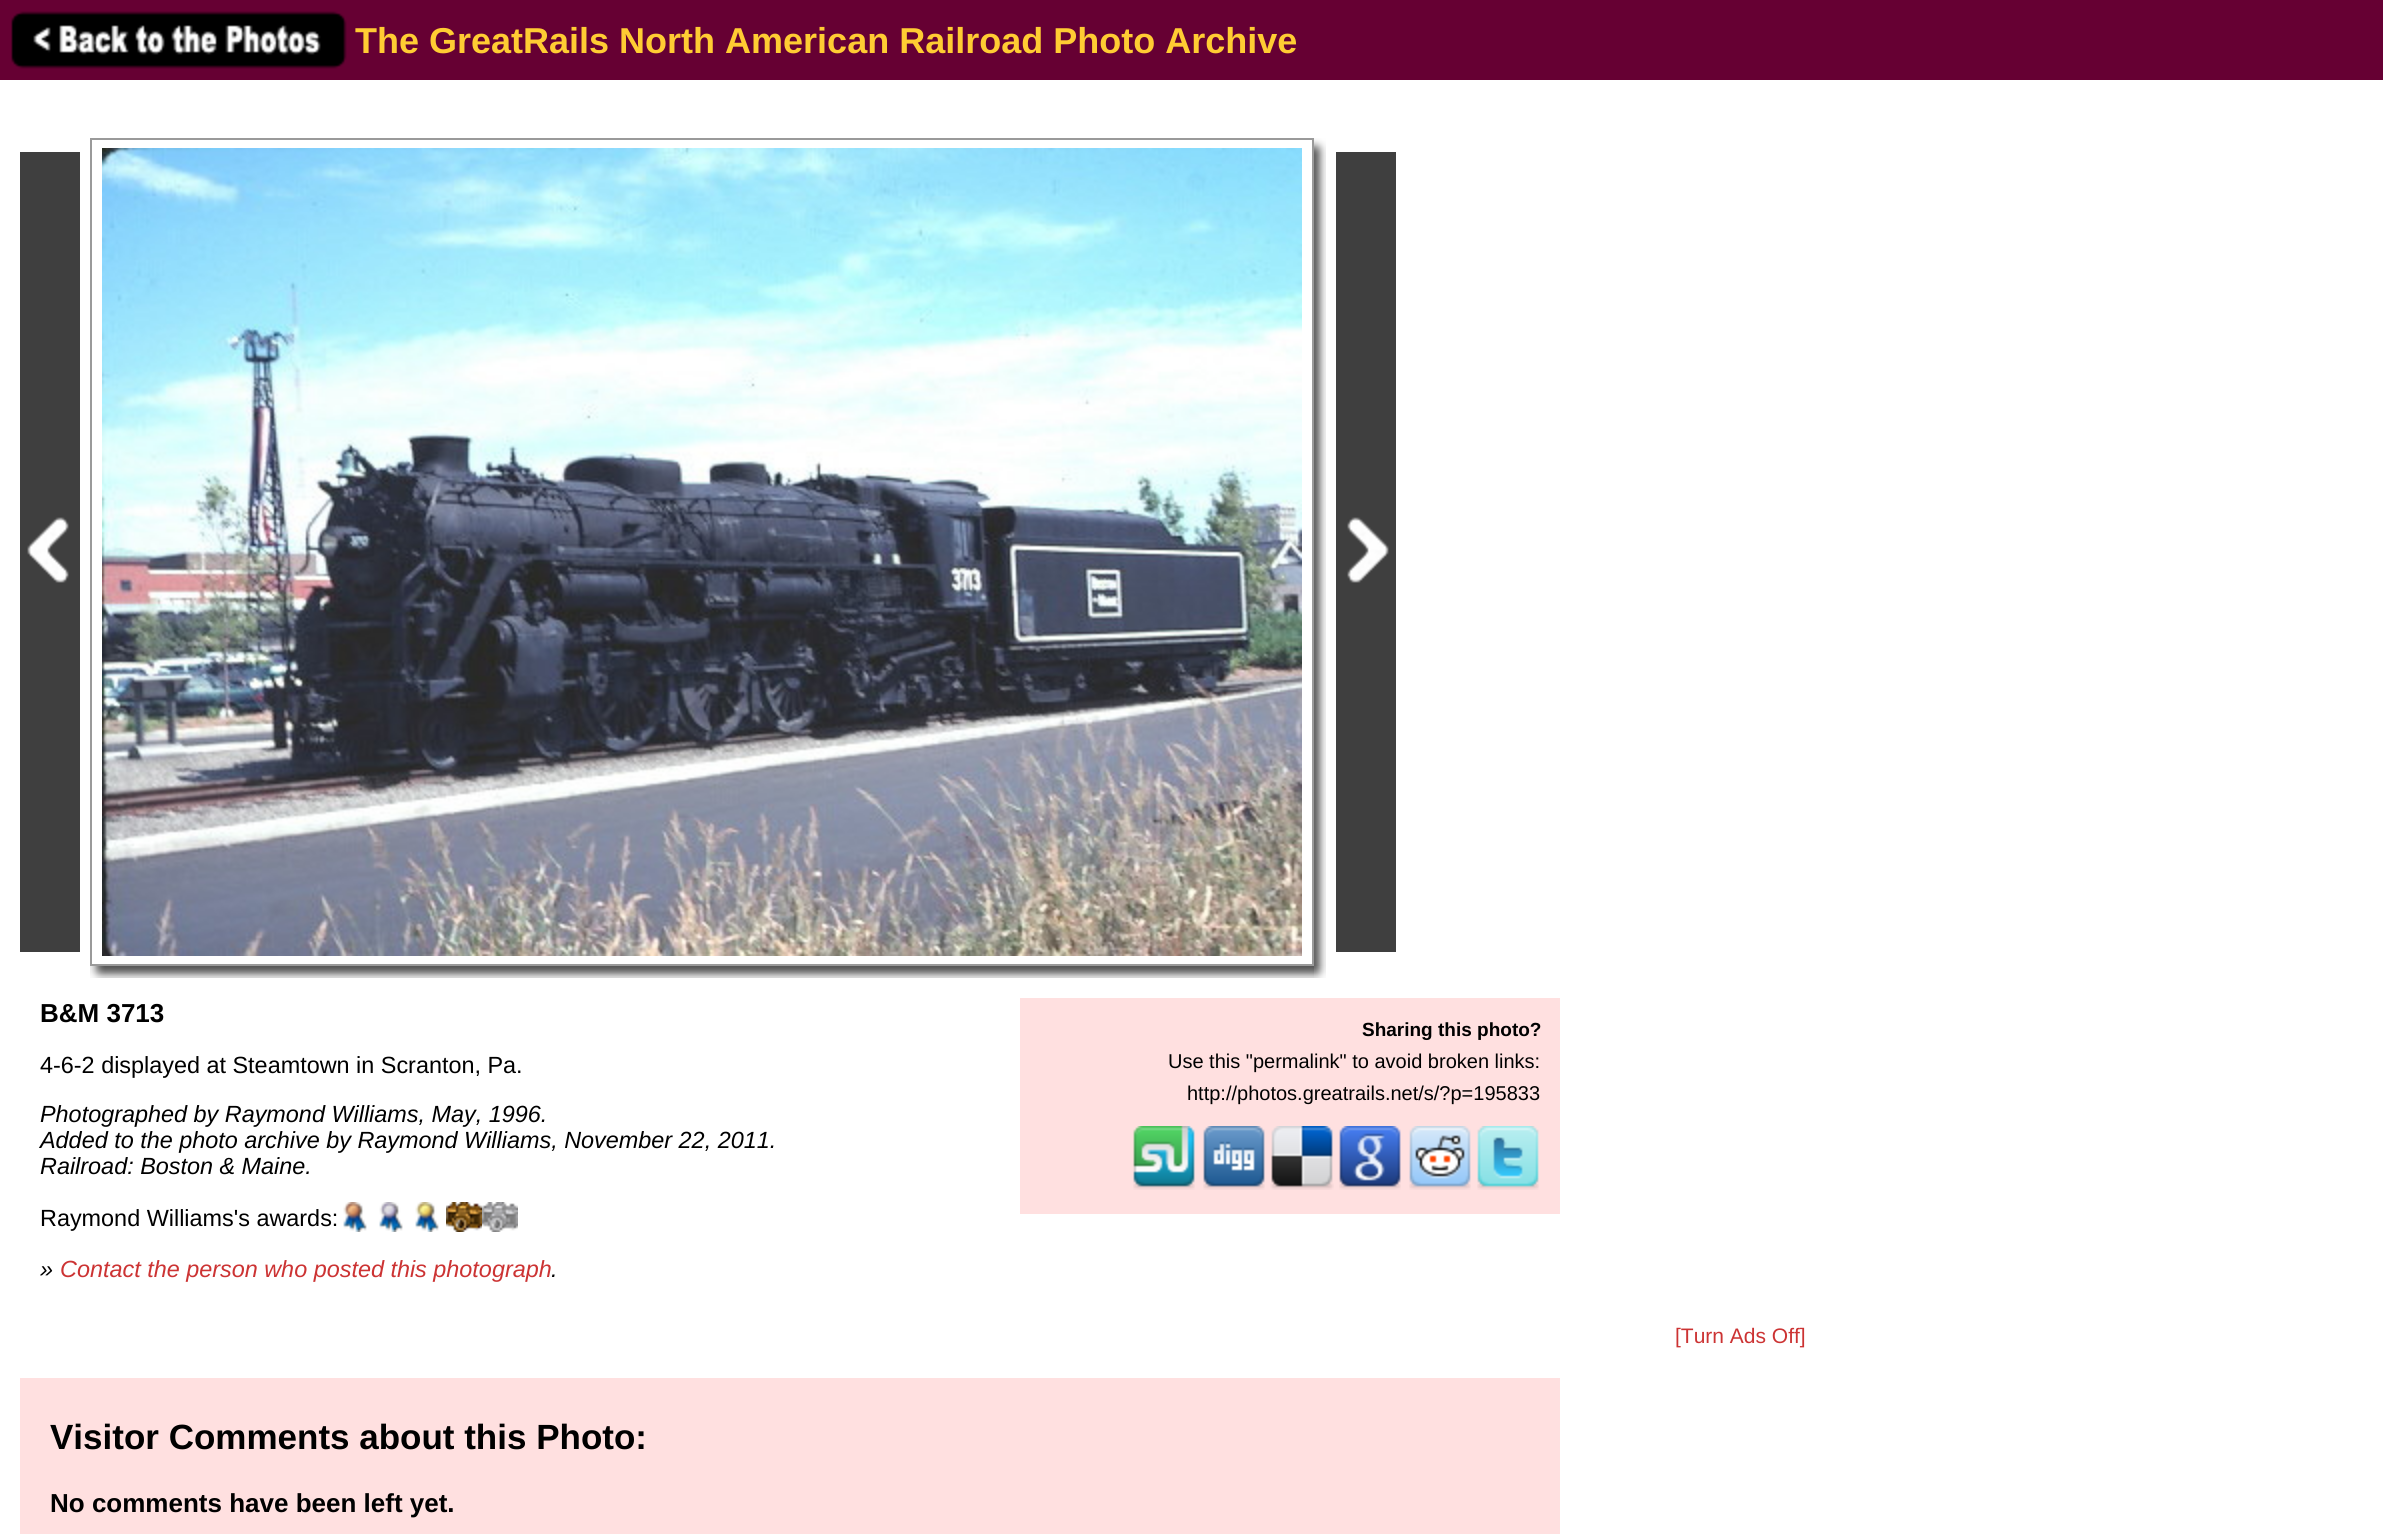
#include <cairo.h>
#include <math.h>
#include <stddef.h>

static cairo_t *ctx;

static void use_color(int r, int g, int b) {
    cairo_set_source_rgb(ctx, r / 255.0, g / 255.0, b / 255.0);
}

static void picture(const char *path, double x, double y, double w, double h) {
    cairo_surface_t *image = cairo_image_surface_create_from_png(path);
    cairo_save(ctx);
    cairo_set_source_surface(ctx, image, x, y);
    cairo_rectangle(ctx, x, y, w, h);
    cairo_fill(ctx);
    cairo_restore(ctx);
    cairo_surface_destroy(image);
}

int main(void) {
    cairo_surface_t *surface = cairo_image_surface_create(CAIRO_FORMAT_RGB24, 2383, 1534);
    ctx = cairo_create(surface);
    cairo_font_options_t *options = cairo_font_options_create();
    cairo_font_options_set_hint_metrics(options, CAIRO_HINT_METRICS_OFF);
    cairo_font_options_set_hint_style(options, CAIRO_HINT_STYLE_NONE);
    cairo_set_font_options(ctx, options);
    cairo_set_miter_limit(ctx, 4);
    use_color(255, 255, 255);
    cairo_paint(ctx);
    use_color(102, 0, 51);
    cairo_rectangle(ctx, 0, 0, 2383, 80);
    cairo_fill(ctx);
    picture("img1.png", 11, 11, 336, 58);
    cairo_select_font_face(ctx, "Liberation Sans", CAIRO_FONT_SLANT_NORMAL, CAIRO_FONT_WEIGHT_BOLD);
    cairo_set_font_size(ctx, 36);
    use_color(255, 204, 51);
    cairo_move_to(ctx, 355, 53);
    cairo_show_text(ctx, "The GreatRails North American Railroad Photo Archive");
    picture("img2.png", 20, 152, 60, 800);
    cairo_rectangle(ctx, 91, 139, 1222, 826);
    use_color(154, 154, 154);
    cairo_stroke(ctx);
    picture("img3.png", 102, 148, 1200, 808);
    picture("img4.png", 1314, 138, 12, 828);
    picture("img5.png", 1336, 152, 60, 800);
    picture("img6.png", 90, 966, 1224, 12);
    picture("img7.png", 1314, 966, 12, 12);
    cairo_set_font_size(ctx, 26);
    use_color(0, 0, 0);
    cairo_move_to(ctx, 40, 1022);
    cairo_show_text(ctx, "B&M 3713");
    cairo_select_font_face(ctx, "Liberation Sans", CAIRO_FONT_SLANT_NORMAL, CAIRO_FONT_WEIGHT_NORMAL);
    cairo_set_font_size(ctx, 23.4);
    cairo_move_to(ctx, 40, 1073);
    cairo_show_text(ctx, "4-6-2 displayed at Steamtown in Scranton, Pa.");
    cairo_select_font_face(ctx, "Liberation Sans", CAIRO_FONT_SLANT_ITALIC, CAIRO_FONT_WEIGHT_NORMAL);
    cairo_move_to(ctx, 40, 1122);
    cairo_show_text(ctx, "Photographed by Raymond Williams, May, 1996.");
    cairo_move_to(ctx, 40, 1148);
    cairo_show_text(ctx, "Added to the photo archive by Raymond Williams, November 22, 2011.");
    cairo_move_to(ctx, 40, 1174);
    cairo_show_text(ctx, "Railroad: Boston & Maine.");
    cairo_select_font_face(ctx, "Liberation Sans", CAIRO_FONT_SLANT_NORMAL, CAIRO_FONT_WEIGHT_NORMAL);
    cairo_move_to(ctx, 40, 1226);
    cairo_show_text(ctx, "Raymond Williams's awards:");
    picture("img8.png", 343, 1202, 24, 30);
    picture("img9.png", 379, 1202, 24, 30);
    picture("img10.png", 415, 1202, 24, 30);
    picture("img11.png", 446, 1202, 36, 30);
    picture("img12.png", 482, 1202, 36, 30);
    cairo_select_font_face(ctx, "Liberation Sans", CAIRO_FONT_SLANT_ITALIC, CAIRO_FONT_WEIGHT_NORMAL);
    cairo_move_to(ctx, 40, 1277);
    cairo_show_text(ctx, "»");
    use_color(204, 51, 51);
    cairo_move_to(ctx, 60, 1277);
    cairo_show_text(ctx, "Contact the person who posted this photograph");
    use_color(0, 0, 0);
    cairo_move_to(ctx, 551, 1277);
    cairo_show_text(ctx, ".");
    use_color(255, 224, 224);
    cairo_rectangle(ctx, 1020, 998, 540, 216);
    cairo_fill(ctx);
    cairo_select_font_face(ctx, "Liberation Sans", CAIRO_FONT_SLANT_NORMAL, CAIRO_FONT_WEIGHT_BOLD);
    cairo_set_font_size(ctx, 19);
    use_color(0, 0, 0);
    cairo_move_to(ctx, 1362, 1036);
    cairo_show_text(ctx, "Sharing this photo?");
    cairo_select_font_face(ctx, "Liberation Sans", CAIRO_FONT_SLANT_NORMAL, CAIRO_FONT_WEIGHT_NORMAL);
    cairo_set_font_size(ctx, 20);
    cairo_move_to(ctx, 1168, 1068);
    cairo_show_text(ctx, "Use this \"permalink\" to avoid broken links:");
    cairo_move_to(ctx, 1187, 1100);
    cairo_show_text(ctx, "http://photos.greatrails.net/s/?p=195833");
    picture("img13.png", 1133, 1126, 62, 64);
    picture("img14.png", 1203, 1126, 62, 64);
    picture("img15.png", 1270, 1126, 64, 64);
    picture("img16.png", 1339, 1126, 62, 64);
    picture("img17.png", 1409, 1126, 62, 64);
    picture("img18.png", 1477, 1126, 62, 64);
    cairo_set_font_size(ctx, 21);
    use_color(204, 51, 51);
    cairo_move_to(ctx, 1675, 1343);
    cairo_show_text(ctx, "[Turn Ads Off]");
    use_color(255, 224, 224);
    cairo_rectangle(ctx, 20, 1378, 1540, 156);
    cairo_fill(ctx);
    cairo_select_font_face(ctx, "Liberation Sans", CAIRO_FONT_SLANT_NORMAL, CAIRO_FONT_WEIGHT_BOLD);
    cairo_set_font_size(ctx, 35);
    use_color(0, 0, 0);
    cairo_move_to(ctx, 50, 1449);
    cairo_show_text(ctx, "Visitor Comments about this Photo:");
    cairo_set_font_size(ctx, 26);
    cairo_move_to(ctx, 50, 1512);
    cairo_show_text(ctx, "No comments have been left yet.");
    cairo_surface_write_to_png(surface, "result.png");
    cairo_font_options_destroy(options);
    cairo_destroy(ctx);
    cairo_surface_destroy(surface);
    return 0;
}
